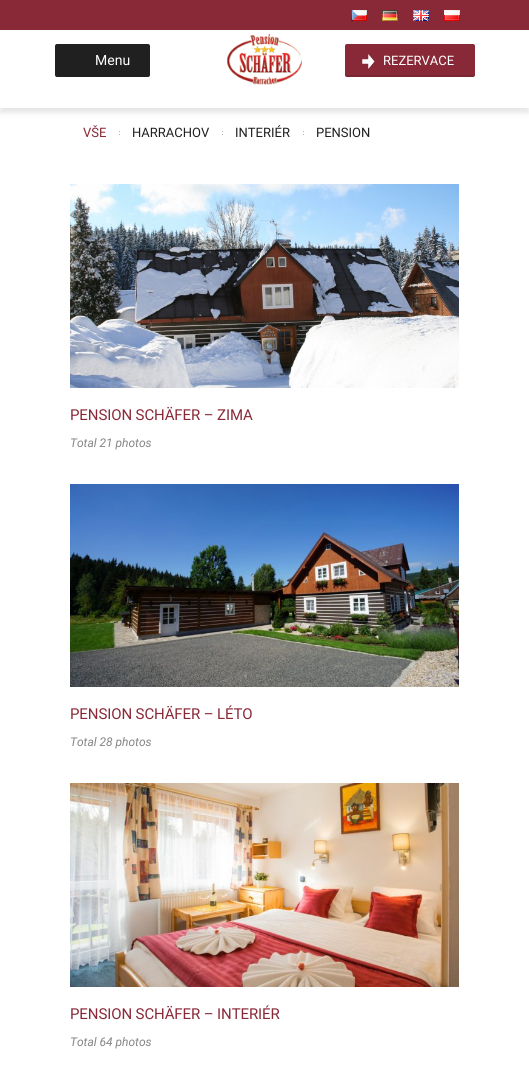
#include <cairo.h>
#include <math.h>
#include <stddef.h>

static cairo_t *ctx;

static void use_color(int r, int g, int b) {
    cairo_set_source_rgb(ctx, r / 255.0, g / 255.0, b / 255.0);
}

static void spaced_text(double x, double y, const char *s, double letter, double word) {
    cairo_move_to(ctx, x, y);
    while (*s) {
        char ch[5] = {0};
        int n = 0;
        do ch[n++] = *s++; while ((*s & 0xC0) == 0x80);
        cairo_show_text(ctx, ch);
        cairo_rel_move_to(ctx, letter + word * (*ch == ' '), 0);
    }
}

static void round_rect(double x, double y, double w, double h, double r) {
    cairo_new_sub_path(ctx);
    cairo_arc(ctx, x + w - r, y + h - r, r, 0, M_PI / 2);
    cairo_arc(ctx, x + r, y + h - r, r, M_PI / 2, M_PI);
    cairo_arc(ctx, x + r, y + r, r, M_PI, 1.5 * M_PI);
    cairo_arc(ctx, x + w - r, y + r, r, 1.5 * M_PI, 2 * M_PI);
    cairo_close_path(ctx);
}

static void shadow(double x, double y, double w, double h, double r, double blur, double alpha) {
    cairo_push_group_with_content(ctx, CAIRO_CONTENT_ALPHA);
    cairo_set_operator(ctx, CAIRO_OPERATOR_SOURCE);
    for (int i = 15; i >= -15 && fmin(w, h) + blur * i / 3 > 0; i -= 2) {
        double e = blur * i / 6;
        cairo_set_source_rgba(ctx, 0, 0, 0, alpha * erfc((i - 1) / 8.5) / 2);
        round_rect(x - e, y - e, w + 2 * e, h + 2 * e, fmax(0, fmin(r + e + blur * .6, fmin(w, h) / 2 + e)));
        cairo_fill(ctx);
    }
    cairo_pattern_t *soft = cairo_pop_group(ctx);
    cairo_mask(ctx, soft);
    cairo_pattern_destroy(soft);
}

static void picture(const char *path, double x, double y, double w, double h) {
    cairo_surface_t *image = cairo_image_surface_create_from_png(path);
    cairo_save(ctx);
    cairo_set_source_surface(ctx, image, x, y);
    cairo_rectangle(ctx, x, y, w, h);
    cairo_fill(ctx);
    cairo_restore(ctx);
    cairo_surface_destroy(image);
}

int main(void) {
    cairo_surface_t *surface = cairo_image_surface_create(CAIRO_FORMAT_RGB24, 529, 1075);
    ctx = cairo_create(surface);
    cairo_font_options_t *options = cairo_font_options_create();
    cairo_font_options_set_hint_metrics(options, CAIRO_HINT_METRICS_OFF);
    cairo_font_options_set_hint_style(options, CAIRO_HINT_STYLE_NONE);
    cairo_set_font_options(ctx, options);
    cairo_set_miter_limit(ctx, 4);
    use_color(255, 255, 255);
    cairo_paint(ctx);
    use_color(137, 41, 55);
    cairo_rectangle(ctx, 0, 0, 529, 30);
    cairo_fill(ctx);
    picture("img1.png", 351, 10, 16, 11);
    picture("img2.png", 382, 10, 16, 11);
    picture("img3.png", 413, 10, 16, 11);
    picture("img4.png", 444, 10, 16, 11);
    use_color(0, 0, 0);
    shadow(0, 35, 529, 78, 0, 2.5, 0.1);
    use_color(255, 255, 255);
    cairo_rectangle(ctx, 0, 32, 529, 76);
    cairo_fill(ctx);
    picture("img5.png", 227, 34, 75, 51);
    use_color(32, 32, 32);
    round_rect(55, 44, 95, 33, 2);
    cairo_fill(ctx);
    cairo_select_font_face(ctx, "Roboto", CAIRO_FONT_SLANT_NORMAL, CAIRO_FONT_WEIGHT_NORMAL);
    cairo_set_font_size(ctx, 14);
    use_color(255, 255, 255);
    cairo_move_to(ctx, 95, 65);
    cairo_show_text(ctx, "Menu");
    use_color(137, 41, 55);
    round_rect(345, 44, 130, 33, 2);
    cairo_fill(ctx);
    picture("img6.png", 362, 54, 13, 15);
    cairo_set_source_rgba(ctx, 0, 0, 0, 0.1);
    cairo_new_path(ctx);
    cairo_move_to(ctx, 345, 73);
    cairo_line_to(ctx, 345, 75);
    cairo_curve_to(ctx, 345, 76, 346, 77, 347, 77);
    cairo_line_to(ctx, 473, 77);
    cairo_curve_to(ctx, 474, 77, 475, 76, 475, 75);
    cairo_line_to(ctx, 475, 73);
    cairo_curve_to(ctx, 475, 74, 474, 75, 473, 75);
    cairo_line_to(ctx, 347, 75);
    cairo_curve_to(ctx, 346, 75, 345, 74, 345, 73);
    cairo_close_path(ctx);
    cairo_fill(ctx);
    cairo_set_font_size(ctx, 13);
    use_color(255, 255, 255);
    cairo_move_to(ctx, 383, 65);
    cairo_show_text(ctx, "REZERVACE");
    use_color(137, 41, 55);
    cairo_move_to(ctx, 83, 137);
    cairo_show_text(ctx, "VŠE");
    picture("img7.png", 119, 131, 1, 4);
    use_color(32, 32, 32);
    cairo_move_to(ctx, 132, 137);
    cairo_show_text(ctx, "HARRACHOV");
    picture("img7.png", 222, 131, 1, 4);
    cairo_move_to(ctx, 235, 137);
    cairo_show_text(ctx, "INTERIÉR");
    picture("img7.png", 303, 131, 1, 4);
    cairo_move_to(ctx, 316, 137);
    cairo_show_text(ctx, "PENSION");
    picture("img8.png", 70, 184, 389, 204);
    cairo_set_font_size(ctx, 15);
    use_color(137, 41, 55);
    spaced_text(70, 420, "PENSION SCHÄFER – ZIMA", -0.1, 0);
    cairo_select_font_face(ctx, "Roboto", CAIRO_FONT_SLANT_ITALIC, CAIRO_FONT_WEIGHT_NORMAL);
    cairo_set_font_size(ctx, 12);
    use_color(133, 133, 133);
    cairo_move_to(ctx, 70, 447);
    cairo_show_text(ctx, "Total 21 photos");
    picture("img9.png", 70, 484, 389, 203);
    cairo_select_font_face(ctx, "Roboto", CAIRO_FONT_SLANT_NORMAL, CAIRO_FONT_WEIGHT_NORMAL);
    cairo_set_font_size(ctx, 15);
    use_color(137, 41, 55);
    spaced_text(70, 719, "PENSION SCHÄFER – LÉTO", -0.1, 0);
    cairo_select_font_face(ctx, "Roboto", CAIRO_FONT_SLANT_ITALIC, CAIRO_FONT_WEIGHT_NORMAL);
    cairo_set_font_size(ctx, 12);
    use_color(133, 133, 133);
    cairo_move_to(ctx, 70, 746);
    cairo_show_text(ctx, "Total 28 photos");
    picture("img10.png", 70, 783, 389, 204);
    cairo_select_font_face(ctx, "Roboto", CAIRO_FONT_SLANT_NORMAL, CAIRO_FONT_WEIGHT_NORMAL);
    cairo_set_font_size(ctx, 15);
    use_color(137, 41, 55);
    spaced_text(70, 1019, "PENSION SCHÄFER – INTERIÉR", -0.1, 0);
    cairo_select_font_face(ctx, "Roboto", CAIRO_FONT_SLANT_ITALIC, CAIRO_FONT_WEIGHT_NORMAL);
    cairo_set_font_size(ctx, 12);
    use_color(133, 133, 133);
    cairo_move_to(ctx, 70, 1046);
    cairo_show_text(ctx, "Total 64 photos");
    cairo_surface_write_to_png(surface, "result.png");
    cairo_font_options_destroy(options);
    cairo_destroy(ctx);
    cairo_surface_destroy(surface);
    return 0;
}
